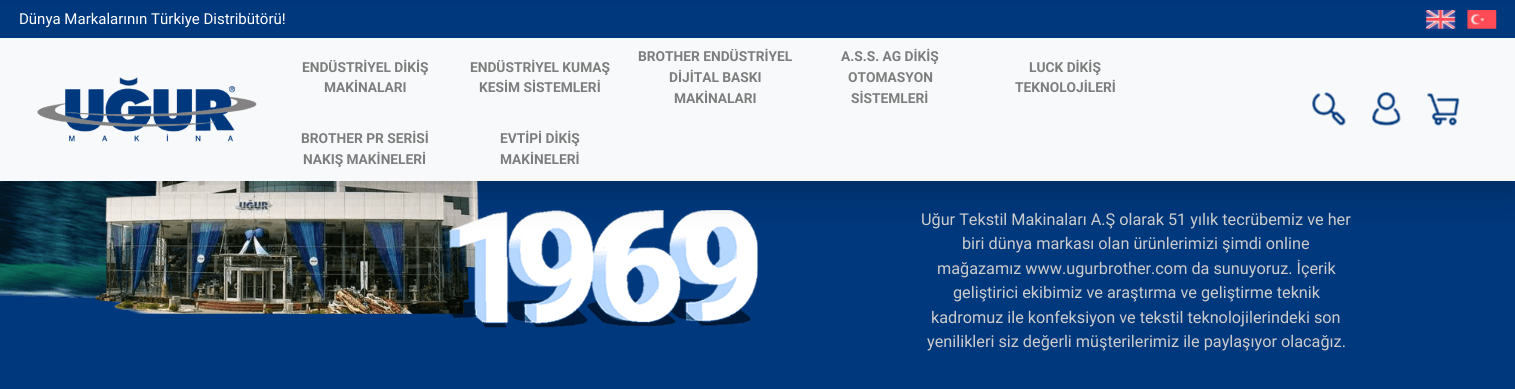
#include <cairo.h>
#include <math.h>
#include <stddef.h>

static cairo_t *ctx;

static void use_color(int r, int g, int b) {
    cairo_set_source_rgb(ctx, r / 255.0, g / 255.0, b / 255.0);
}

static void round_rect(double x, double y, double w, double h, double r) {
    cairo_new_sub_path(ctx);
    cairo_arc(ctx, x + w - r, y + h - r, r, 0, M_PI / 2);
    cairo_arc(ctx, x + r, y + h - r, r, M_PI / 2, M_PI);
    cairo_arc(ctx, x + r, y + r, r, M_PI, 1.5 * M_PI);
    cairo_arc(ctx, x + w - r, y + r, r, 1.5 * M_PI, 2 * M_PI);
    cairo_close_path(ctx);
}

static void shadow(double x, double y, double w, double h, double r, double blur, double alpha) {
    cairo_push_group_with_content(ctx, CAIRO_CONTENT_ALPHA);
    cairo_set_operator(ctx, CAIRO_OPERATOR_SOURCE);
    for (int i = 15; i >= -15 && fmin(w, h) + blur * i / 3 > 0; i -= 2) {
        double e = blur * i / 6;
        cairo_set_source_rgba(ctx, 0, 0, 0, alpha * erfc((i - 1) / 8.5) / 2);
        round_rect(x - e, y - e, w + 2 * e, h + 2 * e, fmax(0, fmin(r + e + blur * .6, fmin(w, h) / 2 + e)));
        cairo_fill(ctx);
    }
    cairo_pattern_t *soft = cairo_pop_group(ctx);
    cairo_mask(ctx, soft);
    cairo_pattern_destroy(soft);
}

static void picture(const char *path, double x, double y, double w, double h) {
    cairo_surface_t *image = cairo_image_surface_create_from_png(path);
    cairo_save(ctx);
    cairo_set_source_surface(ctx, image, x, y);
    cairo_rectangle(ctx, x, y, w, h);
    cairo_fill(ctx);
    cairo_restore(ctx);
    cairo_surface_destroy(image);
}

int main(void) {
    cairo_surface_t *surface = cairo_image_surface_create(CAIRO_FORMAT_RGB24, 1515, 389);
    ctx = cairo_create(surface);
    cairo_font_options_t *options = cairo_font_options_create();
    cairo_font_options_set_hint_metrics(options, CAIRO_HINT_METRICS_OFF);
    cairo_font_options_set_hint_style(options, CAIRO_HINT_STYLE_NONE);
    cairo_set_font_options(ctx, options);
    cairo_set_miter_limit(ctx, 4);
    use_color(0, 56, 125);
    cairo_paint(ctx);
    picture("img7.png", 0, 181, 758, 147);
    use_color(0, 0, 0);
    shadow(0, 38, 1515, 143, 0, 22, 0.35);
    use_color(0, 56, 125);
    cairo_rectangle(ctx, 0, 4, 1515, 34);
    cairo_fill(ctx);
    cairo_select_font_face(ctx, "Roboto", CAIRO_FONT_SLANT_NORMAL, CAIRO_FONT_WEIGHT_NORMAL);
    cairo_set_font_size(ctx, 15);
    use_color(255, 255, 255);
    cairo_move_to(ctx, 19, 24);
    cairo_show_text(ctx, "Dünya Markalarının Türkiye Distribütörü!");
    picture("img1.png", 1426, 10, 30, 19);
    picture("img2.png", 1467, 10, 30, 19);
    use_color(248, 249, 250);
    cairo_rectangle(ctx, 0, 38, 1515, 143);
    cairo_fill(ctx);
    picture("img3.png", 37, 77, 220, 65);
    cairo_select_font_face(ctx, "Roboto", CAIRO_FONT_SLANT_NORMAL, CAIRO_FONT_WEIGHT_BOLD);
    cairo_set_font_size(ctx, 13.75);
    use_color(124, 125, 125);
    cairo_move_to(ctx, 302, 72);
    cairo_show_text(ctx, "ENDÜSTRİYEL DİKİŞ");
    cairo_move_to(ctx, 324, 92);
    cairo_show_text(ctx, "MAKİNALARI");
    cairo_move_to(ctx, 470, 72);
    cairo_show_text(ctx, "ENDÜSTRİYEL KUMAŞ");
    cairo_move_to(ctx, 479, 92);
    cairo_show_text(ctx, "KESİM SİSTEMLERİ");
    cairo_move_to(ctx, 638, 61);
    cairo_show_text(ctx, "BROTHER ENDÜSTRİYEL");
    cairo_move_to(ctx, 669, 82);
    cairo_show_text(ctx, "DİJİTAL BASKI");
    cairo_move_to(ctx, 674, 103);
    cairo_show_text(ctx, "MAKİNALARI");
    cairo_move_to(ctx, 841, 61);
    cairo_show_text(ctx, "A.S.S. AG DİKİŞ");
    cairo_move_to(ctx, 848, 82);
    cairo_show_text(ctx, "OTOMASYON");
    cairo_move_to(ctx, 851, 103);
    cairo_show_text(ctx, "SİSTEMLERİ");
    cairo_move_to(ctx, 1029, 72);
    cairo_show_text(ctx, "LUCK DİKİŞ");
    cairo_move_to(ctx, 1015, 92);
    cairo_show_text(ctx, "TEKNOLOJİLERİ");
    cairo_move_to(ctx, 301, 143);
    cairo_show_text(ctx, "BROTHER PR SERİSİ");
    cairo_move_to(ctx, 303, 164);
    cairo_show_text(ctx, "NAKIŞ MAKİNELERİ");
    cairo_move_to(ctx, 500, 143);
    cairo_show_text(ctx, "EVTİPİ DİKİŞ");
    cairo_move_to(ctx, 500, 164);
    cairo_show_text(ctx, "MAKİNELERİ");
    picture("img4.png", 1312, 92, 34, 34);
    picture("img5.png", 1372, 92, 29, 34);
    picture("img6.png", 1427, 93, 33, 33);
    cairo_select_font_face(ctx, "Roboto", CAIRO_FONT_SLANT_NORMAL, CAIRO_FONT_WEIGHT_NORMAL);
    cairo_set_font_size(ctx, 16.25);
    use_color(204, 204, 204);
    cairo_move_to(ctx, 921, 225);
    cairo_show_text(ctx, "Uğur Tekstil Makinaları A.Ş olarak 51 yılık tecrübemiz ve her");
    cairo_move_to(ctx, 962, 249);
    cairo_show_text(ctx, "biri dünya markası olan ürünlerimizi şimdi online");
    cairo_move_to(ctx, 937, 274);
    cairo_show_text(ctx, "mağazamız www.ugurbrother.com da sunuyoruz. İçerik");
    cairo_move_to(ctx, 953, 298);
    cairo_show_text(ctx, "geliştirici ekibimiz ve araştırma ve geliştirme teknik");
    cairo_move_to(ctx, 931, 323);
    cairo_show_text(ctx, "kadromuz ile konfeksiyon ve tekstil teknolojilerindeki son");
    cairo_move_to(ctx, 927, 347);
    cairo_show_text(ctx, "yenilikleri siz değerli müşterilerimiz ile paylaşıyor olacağız.");
    cairo_surface_write_to_png(surface, "result.png");
    cairo_font_options_destroy(options);
    cairo_destroy(ctx);
    cairo_surface_destroy(surface);
    return 0;
}
